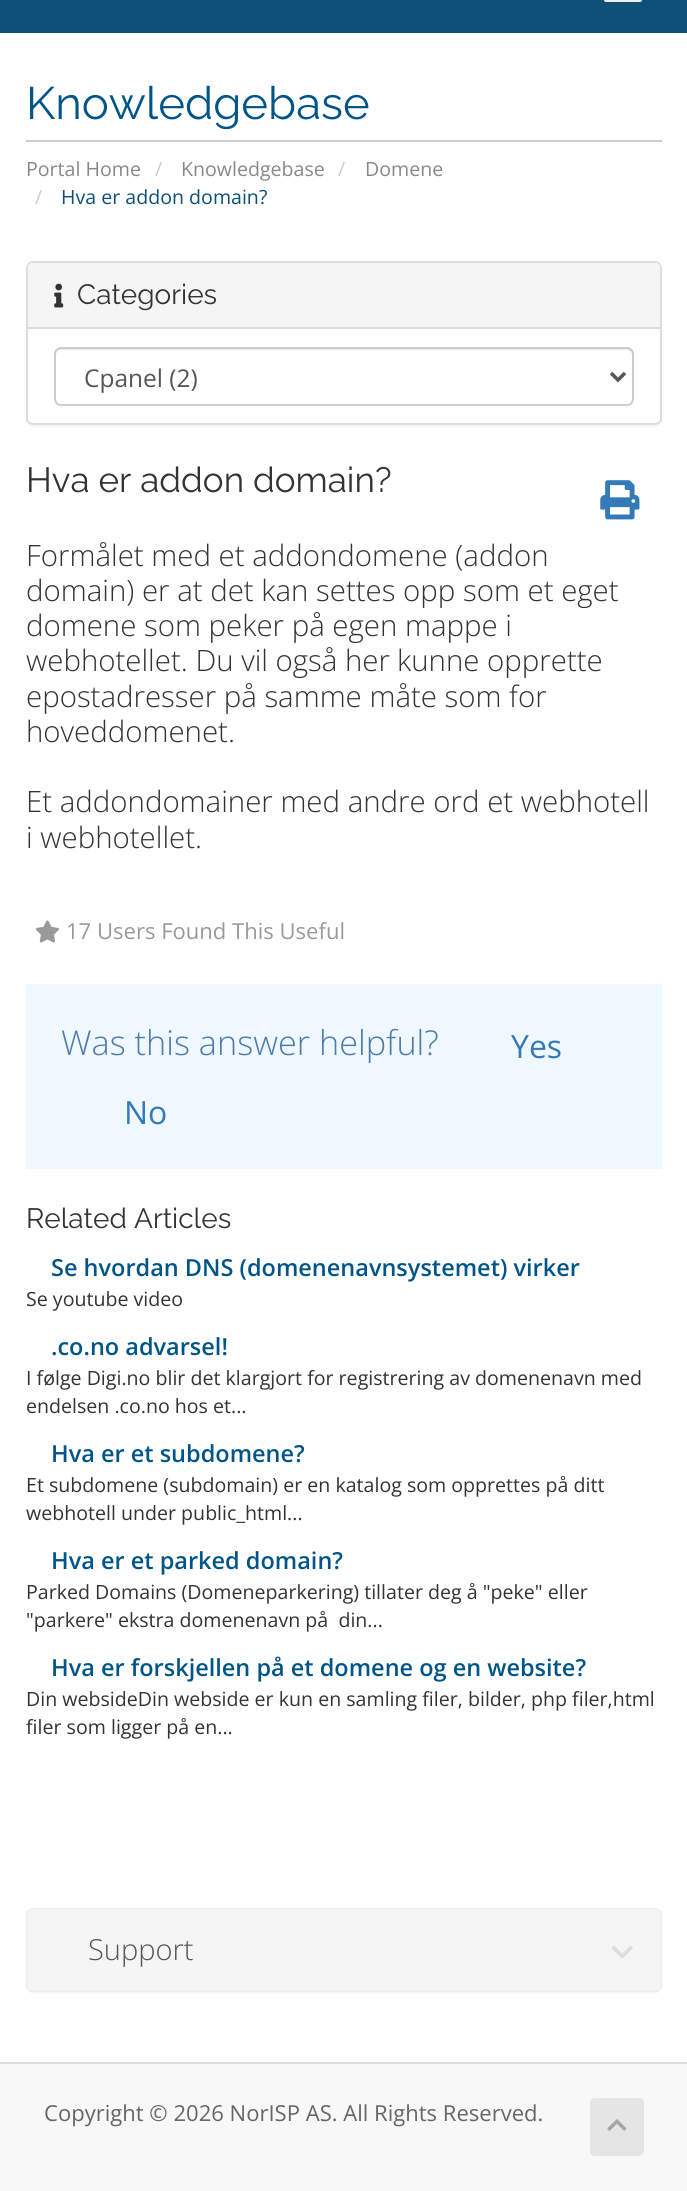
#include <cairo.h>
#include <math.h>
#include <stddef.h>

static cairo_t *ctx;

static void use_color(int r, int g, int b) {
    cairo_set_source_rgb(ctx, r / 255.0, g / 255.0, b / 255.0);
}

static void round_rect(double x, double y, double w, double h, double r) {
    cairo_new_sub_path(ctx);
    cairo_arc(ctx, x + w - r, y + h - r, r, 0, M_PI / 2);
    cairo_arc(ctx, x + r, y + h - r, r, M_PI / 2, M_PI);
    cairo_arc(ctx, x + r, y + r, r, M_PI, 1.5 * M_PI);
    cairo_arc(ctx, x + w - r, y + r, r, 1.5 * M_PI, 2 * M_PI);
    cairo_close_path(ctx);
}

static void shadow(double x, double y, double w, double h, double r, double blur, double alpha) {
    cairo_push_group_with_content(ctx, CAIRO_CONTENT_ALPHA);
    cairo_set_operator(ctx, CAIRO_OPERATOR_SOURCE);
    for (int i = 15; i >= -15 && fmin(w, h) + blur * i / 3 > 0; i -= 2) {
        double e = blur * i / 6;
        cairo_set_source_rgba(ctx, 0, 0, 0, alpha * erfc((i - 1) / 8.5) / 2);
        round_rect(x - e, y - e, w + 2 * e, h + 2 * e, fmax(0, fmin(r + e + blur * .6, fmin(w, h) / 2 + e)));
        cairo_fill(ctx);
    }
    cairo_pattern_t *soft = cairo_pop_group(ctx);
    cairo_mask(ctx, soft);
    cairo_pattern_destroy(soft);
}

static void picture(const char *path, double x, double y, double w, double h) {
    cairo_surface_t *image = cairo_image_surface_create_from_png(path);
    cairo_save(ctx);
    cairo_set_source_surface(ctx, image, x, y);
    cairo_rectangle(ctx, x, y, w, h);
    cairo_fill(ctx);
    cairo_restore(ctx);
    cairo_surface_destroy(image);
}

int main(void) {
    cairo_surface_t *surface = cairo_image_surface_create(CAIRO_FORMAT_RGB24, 687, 2191);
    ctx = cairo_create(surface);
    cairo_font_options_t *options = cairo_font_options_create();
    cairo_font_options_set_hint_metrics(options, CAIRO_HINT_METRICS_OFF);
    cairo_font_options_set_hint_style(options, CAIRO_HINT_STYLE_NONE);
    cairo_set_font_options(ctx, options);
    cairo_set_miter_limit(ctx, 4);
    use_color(248, 248, 248);
    cairo_paint(ctx);
    use_color(14, 80, 119);
    cairo_rectangle(ctx, 0, 0, 687, 33);
    cairo_fill(ctx);
    use_color(238, 238, 238);
    round_rect(604, -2, 38, 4, 2);
    cairo_fill(ctx);
    use_color(255, 255, 255);
    cairo_rectangle(ctx, 0, 33, 687, 2029);
    cairo_fill(ctx);
    use_color(204, 204, 204);
    cairo_rectangle(ctx, 26, 140, 636, 2);
    cairo_fill(ctx);
    cairo_select_font_face(ctx, "Raleway", CAIRO_FONT_SLANT_NORMAL, CAIRO_FONT_WEIGHT_NORMAL);
    cairo_set_font_size(ctx, 45.5);
    use_color(0, 85, 136);
    cairo_move_to(ctx, 26, 119);
    cairo_show_text(ctx, "Knowledgebase");
    cairo_select_font_face(ctx, "Open Sans", CAIRO_FONT_SLANT_NORMAL, CAIRO_FONT_WEIGHT_NORMAL);
    cairo_set_font_size(ctx, 19.6);
    use_color(136, 136, 136);
    cairo_move_to(ctx, 26, 176);
    cairo_show_text(ctx, "Portal Home");
    use_color(204, 204, 204);
    cairo_move_to(ctx, 155, 176);
    cairo_show_text(ctx, "/");
    use_color(136, 136, 136);
    cairo_move_to(ctx, 181, 176);
    cairo_show_text(ctx, "Knowledgebase");
    use_color(204, 204, 204);
    cairo_move_to(ctx, 338, 176);
    cairo_show_text(ctx, "/");
    use_color(136, 136, 136);
    cairo_move_to(ctx, 365, 176);
    cairo_show_text(ctx, "Domene");
    use_color(204, 204, 204);
    cairo_move_to(ctx, 35, 204);
    cairo_show_text(ctx, "/");
    use_color(14, 80, 119);
    cairo_move_to(ctx, 61, 204);
    cairo_show_text(ctx, "Hva er addon domain?");
    use_color(0, 0, 0);
    shadow(26, 263, 636, 164, 7, 1, 0.05);
    use_color(255, 255, 255);
    round_rect(27, 262, 634, 162, 6);
    cairo_fill_preserve(ctx);
    use_color(221, 221, 221);
    cairo_stroke(ctx);
    use_color(245, 245, 245);
    cairo_new_path(ctx);
    cairo_move_to(ctx, 33, 263);
    cairo_line_to(ctx, 655, 263);
    cairo_curve_to(ctx, 658, 263, 660, 265, 660, 268);
    cairo_line_to(ctx, 660, 329);
    cairo_line_to(ctx, 28, 329);
    cairo_line_to(ctx, 28, 268);
    cairo_curve_to(ctx, 28, 265, 30, 263, 33, 263);
    cairo_close_path(ctx);
    cairo_fill(ctx);
    use_color(221, 221, 221);
    cairo_rectangle(ctx, 28, 327, 632, 2);
    cairo_fill(ctx);
    picture("img1.png", 54, 283, 10, 25);
    cairo_select_font_face(ctx, "Raleway", CAIRO_FONT_SLANT_NORMAL, CAIRO_FONT_WEIGHT_NORMAL);
    cairo_set_font_size(ctx, 28);
    use_color(51, 51, 51);
    cairo_move_to(ctx, 77, 304);
    cairo_show_text(ctx, "Categories");
    use_color(236, 236, 236);
    cairo_new_path(ctx);
    cairo_move_to(ctx, 61, 350);
    cairo_line_to(ctx, 626, 350);
    cairo_curve_to(ctx, 629, 350, 632, 352, 632, 355);
    cairo_line_to(ctx, 632, 353);
    cairo_curve_to(ctx, 632, 350, 630, 348, 627, 348);
    cairo_line_to(ctx, 61, 348);
    cairo_curve_to(ctx, 58, 348, 56, 350, 56, 353);
    cairo_line_to(ctx, 56, 355);
    cairo_curve_to(ctx, 56, 352, 58, 350, 61, 350);
    cairo_close_path(ctx);
    cairo_fill(ctx);
    round_rect(55, 348, 578, 57, 6);
    use_color(204, 204, 204);
    cairo_stroke(ctx);
    cairo_new_path(ctx);
    cairo_move_to(ctx, 611, 373);
    cairo_line_to(ctx, 618, 380);
    cairo_line_to(ctx, 625, 373);
    use_color(85, 85, 85);
    cairo_set_line_width(ctx, 3.5);
    cairo_stroke(ctx);
    cairo_select_font_face(ctx, "Open Sans", CAIRO_FONT_SLANT_NORMAL, CAIRO_FONT_WEIGHT_NORMAL);
    cairo_set_font_size(ctx, 24.5);
    cairo_move_to(ctx, 84, 387);
    cairo_show_text(ctx, "Cpanel (2)");
    cairo_select_font_face(ctx, "Raleway", CAIRO_FONT_SLANT_NORMAL, CAIRO_FONT_WEIGHT_NORMAL);
    cairo_set_font_size(ctx, 35);
    use_color(51, 51, 51);
    cairo_move_to(ctx, 26, 492);
    cairo_show_text(ctx, "Hva er addon domain?");
    picture("img2.png", 600, 480, 40, 40);
    cairo_select_font_face(ctx, "Open Sans Light", CAIRO_FONT_SLANT_NORMAL, CAIRO_FONT_WEIGHT_NORMAL);
    cairo_set_font_size(ctx, 29.4);
    cairo_move_to(ctx, 26, 566);
    cairo_show_text(ctx, "Formålet med et addondomene (addon");
    cairo_move_to(ctx, 26, 601);
    cairo_show_text(ctx, "domain) er at det kan settes opp som et eget");
    cairo_move_to(ctx, 26, 636);
    cairo_show_text(ctx, "domene som peker på egen mappe i");
    cairo_move_to(ctx, 26, 671);
    cairo_show_text(ctx, "webhotellet. Du vil også her");
    cairo_move_to(ctx, 397, 671);
    cairo_show_text(ctx, "kunne opprette");
    cairo_move_to(ctx, 26, 707);
    cairo_show_text(ctx, "epostadresser på samme måte som for");
    cairo_move_to(ctx, 26, 742);
    cairo_show_text(ctx, "hoveddomenet.");
    cairo_move_to(ctx, 26, 812);
    cairo_show_text(ctx, "Et addondomainer med andre ord et webhotell");
    cairo_move_to(ctx, 26, 848);
    cairo_show_text(ctx, "i webhotellet.");
    picture("img3.png", 35, 920, 24, 23);
    cairo_select_font_face(ctx, "Open Sans", CAIRO_FONT_SLANT_NORMAL, CAIRO_FONT_WEIGHT_NORMAL);
    cairo_set_font_size(ctx, 22.05);
    use_color(153, 153, 153);
    cairo_move_to(ctx, 66, 939);
    cairo_show_text(ctx, "17 Users Found This Useful");
    use_color(239, 247, 255);
    cairo_rectangle(ctx, 26, 984, 636, 185);
    cairo_fill(ctx);
    cairo_select_font_face(ctx, "Open Sans Light", CAIRO_FONT_SLANT_NORMAL, CAIRO_FONT_WEIGHT_NORMAL);
    cairo_set_font_size(ctx, 34.25);
    use_color(77, 124, 171);
    cairo_move_to(ctx, 61, 1055);
    cairo_show_text(ctx, "Was this answer helpful?");
    cairo_select_font_face(ctx, "Open Sans", CAIRO_FONT_SLANT_NORMAL, CAIRO_FONT_WEIGHT_NORMAL);
    cairo_set_font_size(ctx, 32);
    use_color(51, 122, 183);
    cairo_move_to(ctx, 511, 1058);
    cairo_show_text(ctx, "Yes");
    cairo_move_to(ctx, 124, 1124);
    cairo_show_text(ctx, "No");
    cairo_select_font_face(ctx, "Raleway", CAIRO_FONT_SLANT_NORMAL, CAIRO_FONT_WEIGHT_NORMAL);
    cairo_set_font_size(ctx, 28);
    use_color(51, 51, 51);
    cairo_move_to(ctx, 26, 1228);
    cairo_show_text(ctx, "Related Articles");
    cairo_select_font_face(ctx, "Open Sans SemiBold", CAIRO_FONT_SLANT_NORMAL, CAIRO_FONT_WEIGHT_NORMAL);
    cairo_set_font_size(ctx, 23.5);
    use_color(0, 85, 136);
    cairo_move_to(ctx, 51, 1276);
    cairo_show_text(ctx, "Se hvordan DNS (domenenavnsystemet) virker");
    cairo_select_font_face(ctx, "Open Sans", CAIRO_FONT_SLANT_NORMAL, CAIRO_FONT_WEIGHT_NORMAL);
    cairo_set_font_size(ctx, 19.6);
    use_color(51, 51, 51);
    cairo_move_to(ctx, 26, 1306);
    cairo_show_text(ctx, "Se youtube video");
    cairo_select_font_face(ctx, "Open Sans SemiBold", CAIRO_FONT_SLANT_NORMAL, CAIRO_FONT_WEIGHT_NORMAL);
    cairo_set_font_size(ctx, 23.5);
    use_color(0, 85, 136);
    cairo_move_to(ctx, 51, 1355);
    cairo_show_text(ctx, ".co.no advarsel!");
    cairo_select_font_face(ctx, "Open Sans", CAIRO_FONT_SLANT_NORMAL, CAIRO_FONT_WEIGHT_NORMAL);
    cairo_set_font_size(ctx, 19.6);
    use_color(51, 51, 51);
    cairo_move_to(ctx, 26, 1385);
    cairo_show_text(ctx, "I følge Digi.no blir det klargjort for registrering av domenenavn med");
    cairo_move_to(ctx, 26, 1413);
    cairo_show_text(ctx, "endelsen .co.no hos et...");
    cairo_select_font_face(ctx, "Open Sans SemiBold", CAIRO_FONT_SLANT_NORMAL, CAIRO_FONT_WEIGHT_NORMAL);
    cairo_set_font_size(ctx, 23.5);
    use_color(0, 85, 136);
    cairo_move_to(ctx, 51, 1462);
    cairo_show_text(ctx, "Hva er et subdomene?");
    cairo_select_font_face(ctx, "Open Sans", CAIRO_FONT_SLANT_NORMAL, CAIRO_FONT_WEIGHT_NORMAL);
    cairo_set_font_size(ctx, 19.6);
    use_color(51, 51, 51);
    cairo_move_to(ctx, 26, 1492);
    cairo_show_text(ctx, "Et subdomene (subdomain) er en katalog som opprettes på ditt");
    cairo_move_to(ctx, 26, 1520);
    cairo_show_text(ctx, "webhotell under public_html...");
    cairo_select_font_face(ctx, "Open Sans SemiBold", CAIRO_FONT_SLANT_NORMAL, CAIRO_FONT_WEIGHT_NORMAL);
    cairo_set_font_size(ctx, 23.5);
    use_color(0, 85, 136);
    cairo_move_to(ctx, 51, 1569);
    cairo_show_text(ctx, "Hva er et parked domain?");
    cairo_select_font_face(ctx, "Open Sans", CAIRO_FONT_SLANT_NORMAL, CAIRO_FONT_WEIGHT_NORMAL);
    cairo_set_font_size(ctx, 19.6);
    use_color(51, 51, 51);
    cairo_move_to(ctx, 26, 1599);
    cairo_show_text(ctx, "Parked Domains (Domeneparkering) tillater deg å \"peke\" eller");
    cairo_move_to(ctx, 26, 1627);
    cairo_show_text(ctx, "\"parkere\" ekstra domenenavn på  din...");
    cairo_select_font_face(ctx, "Open Sans SemiBold", CAIRO_FONT_SLANT_NORMAL, CAIRO_FONT_WEIGHT_NORMAL);
    cairo_set_font_size(ctx, 23.5);
    use_color(0, 85, 136);
    cairo_move_to(ctx, 51, 1676);
    cairo_show_text(ctx, "Hva er forskjellen på et domene og en website?");
    cairo_select_font_face(ctx, "Open Sans", CAIRO_FONT_SLANT_NORMAL, CAIRO_FONT_WEIGHT_NORMAL);
    cairo_set_font_size(ctx, 19.6);
    use_color(51, 51, 51);
    cairo_move_to(ctx, 26, 1706);
    cairo_show_text(ctx, "Din websideDin webside er kun en samling filer, bilder, php filer,html");
    cairo_move_to(ctx, 26, 1734);
    cairo_show_text(ctx, "filer som ligger på en...");
    use_color(0, 0, 0);
    shadow(26, 1909, 636, 84, 7, 1, 0.05);
    round_rect(27, 1909, 634, 82, 6);
    use_color(238, 238, 238);
    cairo_set_line_width(ctx, 2);
    cairo_stroke(ctx);
    use_color(245, 245, 245);
    cairo_new_path(ctx);
    cairo_move_to(ctx, 33, 1909);
    cairo_line_to(ctx, 655, 1909);
    cairo_curve_to(ctx, 658, 1909, 660, 1911, 660, 1914);
    cairo_line_to(ctx, 660, 1990);
    cairo_line_to(ctx, 28, 1990);
    cairo_line_to(ctx, 28, 1914);
    cairo_curve_to(ctx, 28, 1911, 30, 1909, 33, 1909);
    cairo_close_path(ctx);
    cairo_fill(ctx);
    cairo_select_font_face(ctx, "Open Sans Light", CAIRO_FONT_SLANT_NORMAL, CAIRO_FONT_WEIGHT_NORMAL);
    cairo_set_font_size(ctx, 29);
    use_color(85, 85, 85);
    cairo_move_to(ctx, 88, 1960);
    cairo_show_text(ctx, "Support");
    picture("img4.png", 612, 1946, 21, 13);
    use_color(221, 221, 221);
    cairo_rectangle(ctx, 0, 2062, 687, 2);
    cairo_fill(ctx);
    cairo_select_font_face(ctx, "Open Sans", CAIRO_FONT_SLANT_NORMAL, CAIRO_FONT_WEIGHT_NORMAL);
    cairo_set_font_size(ctx, 22.05);
    use_color(102, 102, 102);
    cairo_move_to(ctx, 44, 2121);
    cairo_show_text(ctx, "Copyright © 2026 NorISP AS. All Rights Reserved.");
    use_color(229, 229, 229);
    round_rect(590, 2098, 54, 58, 5);
    cairo_fill(ctx);
    picture("img5.png", 607, 2119, 20, 12);
    cairo_surface_write_to_png(surface, "result.png");
    cairo_font_options_destroy(options);
    cairo_destroy(ctx);
    cairo_surface_destroy(surface);
    return 0;
}
